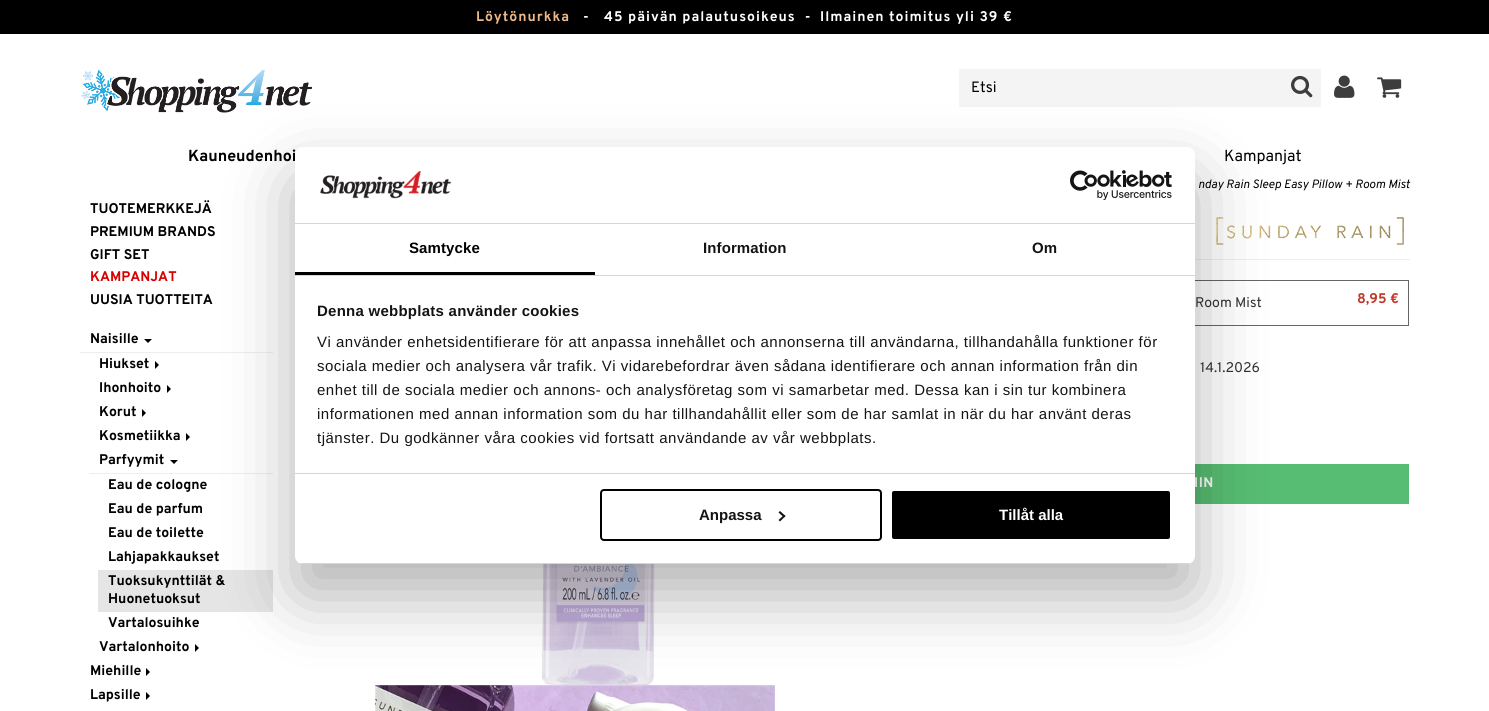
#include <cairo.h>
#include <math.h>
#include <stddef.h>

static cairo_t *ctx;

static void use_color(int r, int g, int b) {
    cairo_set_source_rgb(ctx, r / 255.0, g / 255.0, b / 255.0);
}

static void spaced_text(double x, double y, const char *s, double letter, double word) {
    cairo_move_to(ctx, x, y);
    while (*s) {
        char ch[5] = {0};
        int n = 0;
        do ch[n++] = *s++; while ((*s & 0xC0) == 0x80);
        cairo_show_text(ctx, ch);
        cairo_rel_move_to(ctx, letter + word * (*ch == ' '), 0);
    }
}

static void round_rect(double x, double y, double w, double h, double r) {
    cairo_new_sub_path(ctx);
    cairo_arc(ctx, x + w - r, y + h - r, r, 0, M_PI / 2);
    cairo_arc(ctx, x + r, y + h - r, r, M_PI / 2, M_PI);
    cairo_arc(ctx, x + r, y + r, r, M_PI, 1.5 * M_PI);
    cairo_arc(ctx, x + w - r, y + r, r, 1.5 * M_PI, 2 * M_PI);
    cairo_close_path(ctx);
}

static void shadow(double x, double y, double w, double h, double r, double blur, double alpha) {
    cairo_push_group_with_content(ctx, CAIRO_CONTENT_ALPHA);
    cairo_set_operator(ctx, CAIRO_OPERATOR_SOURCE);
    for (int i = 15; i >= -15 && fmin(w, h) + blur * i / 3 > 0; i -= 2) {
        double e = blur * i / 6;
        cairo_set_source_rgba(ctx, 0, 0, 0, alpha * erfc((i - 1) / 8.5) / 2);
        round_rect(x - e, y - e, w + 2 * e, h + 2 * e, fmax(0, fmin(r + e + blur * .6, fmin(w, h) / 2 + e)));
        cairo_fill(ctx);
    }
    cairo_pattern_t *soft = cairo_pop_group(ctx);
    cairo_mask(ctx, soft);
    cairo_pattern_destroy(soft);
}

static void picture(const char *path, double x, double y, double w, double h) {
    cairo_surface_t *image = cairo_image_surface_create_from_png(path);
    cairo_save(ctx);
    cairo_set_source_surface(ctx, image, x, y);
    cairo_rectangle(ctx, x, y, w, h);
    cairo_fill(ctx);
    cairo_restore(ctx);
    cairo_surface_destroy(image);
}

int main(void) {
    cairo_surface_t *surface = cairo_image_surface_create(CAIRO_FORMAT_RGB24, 1489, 711);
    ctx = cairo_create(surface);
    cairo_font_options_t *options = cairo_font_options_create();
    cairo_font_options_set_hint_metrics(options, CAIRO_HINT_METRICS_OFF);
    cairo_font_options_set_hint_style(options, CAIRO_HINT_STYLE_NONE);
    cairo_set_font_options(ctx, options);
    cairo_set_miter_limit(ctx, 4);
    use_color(255, 255, 255);
    cairo_paint(ctx);
    use_color(0, 0, 0);
    cairo_rectangle(ctx, 0, 0, 1489, 34);
    cairo_fill(ctx);
    cairo_select_font_face(ctx, "Overpass", CAIRO_FONT_SLANT_NORMAL, CAIRO_FONT_WEIGHT_BOLD);
    cairo_set_font_size(ctx, 14);
    use_color(237, 184, 139);
    spaced_text(476, 21, "Löytönurkka", 1, 0);
    use_color(255, 255, 255);
    spaced_text(583, 21, "-", 1, 0);
    spaced_text(604, 21, "45 päivän palautusoikeus  -", 1, 0);
    spaced_text(820, 21, "Ilmainen toimitus yli 39 €", 1, 0);
    picture("img1.png", 81, 69, 231, 44);
    use_color(244, 244, 244);
    cairo_rectangle(ctx, 959, 69, 362, 38);
    cairo_fill(ctx);
    cairo_select_font_face(ctx, "Overpass", CAIRO_FONT_SLANT_NORMAL, CAIRO_FONT_WEIGHT_NORMAL);
    cairo_set_font_size(ctx, 15);
    use_color(0, 0, 0);
    cairo_move_to(ctx, 971, 92);
    cairo_show_text(ctx, "Etsi");
    picture("img2.png", 1291, 75, 22, 23);
    picture("img3.png", 1334, 75, 21, 23);
    picture("img4.png", 1377, 77, 25, 21);
    cairo_select_font_face(ctx, "Overpass", CAIRO_FONT_SLANT_NORMAL, CAIRO_FONT_WEIGHT_BOLD);
    cairo_set_font_size(ctx, 16);
    cairo_move_to(ctx, 188, 161);
    cairo_show_text(ctx, "Kauneudenhoi");
    cairo_select_font_face(ctx, "Overpass", CAIRO_FONT_SLANT_NORMAL, CAIRO_FONT_WEIGHT_NORMAL);
    cairo_move_to(ctx, 1224, 161);
    cairo_show_text(ctx, "Kampanjat");
    cairo_select_font_face(ctx, "Overpass", CAIRO_FONT_SLANT_ITALIC, CAIRO_FONT_WEIGHT_NORMAL);
    cairo_set_font_size(ctx, 12);
    cairo_move_to(ctx, 1198, 188);
    cairo_show_text(ctx, "nday Rain Sleep Easy Pillow + Room Mist");
    cairo_select_font_face(ctx, "Overpass", CAIRO_FONT_SLANT_NORMAL, CAIRO_FONT_WEIGHT_BOLD);
    cairo_set_font_size(ctx, 14);
    cairo_move_to(ctx, 90, 213);
    cairo_show_text(ctx, "TUOTEMERKKEJÄ");
    cairo_move_to(ctx, 90, 236);
    cairo_show_text(ctx, "PREMIUM BRANDS");
    cairo_move_to(ctx, 90, 259);
    cairo_show_text(ctx, "GIFT SET");
    use_color(214, 1, 1);
    cairo_move_to(ctx, 90, 281);
    cairo_show_text(ctx, "KAMPANJAT");
    use_color(0, 0, 0);
    cairo_move_to(ctx, 90, 304);
    cairo_show_text(ctx, "UUSIA TUOTTEITA");
    cairo_move_to(ctx, 90, 343);
    cairo_show_text(ctx, "Naisille");
    cairo_new_path(ctx);
    cairo_move_to(ctx, 144, 339);
    cairo_line_to(ctx, 152, 339);
    cairo_line_to(ctx, 148, 343);
    cairo_close_path(ctx);
    cairo_fill(ctx);
    use_color(238, 238, 238);
    cairo_rectangle(ctx, 80, 352, 193, 1);
    cairo_fill(ctx);
    use_color(0, 0, 0);
    cairo_move_to(ctx, 99, 368);
    cairo_show_text(ctx, "Hiukset");
    cairo_new_path(ctx);
    cairo_move_to(ctx, 155, 369);
    cairo_line_to(ctx, 155, 361);
    cairo_line_to(ctx, 159, 365);
    cairo_close_path(ctx);
    cairo_fill(ctx);
    cairo_move_to(ctx, 99, 392);
    cairo_show_text(ctx, "Ihonhoito");
    cairo_new_path(ctx);
    cairo_move_to(ctx, 167, 393);
    cairo_line_to(ctx, 167, 385);
    cairo_line_to(ctx, 171, 389);
    cairo_close_path(ctx);
    cairo_fill(ctx);
    cairo_move_to(ctx, 99, 416);
    cairo_show_text(ctx, "Korut");
    cairo_new_path(ctx);
    cairo_move_to(ctx, 142, 417);
    cairo_line_to(ctx, 142, 409);
    cairo_line_to(ctx, 146, 413);
    cairo_close_path(ctx);
    cairo_fill(ctx);
    cairo_move_to(ctx, 99, 440);
    cairo_show_text(ctx, "Kosmetiikka");
    cairo_new_path(ctx);
    cairo_move_to(ctx, 186, 441);
    cairo_line_to(ctx, 186, 433);
    cairo_line_to(ctx, 190, 437);
    cairo_close_path(ctx);
    cairo_fill(ctx);
    cairo_move_to(ctx, 99, 464);
    cairo_show_text(ctx, "Parfyymit");
    cairo_new_path(ctx);
    cairo_move_to(ctx, 170, 460);
    cairo_line_to(ctx, 178, 460);
    cairo_line_to(ctx, 174, 464);
    cairo_close_path(ctx);
    cairo_fill(ctx);
    use_color(238, 238, 238);
    cairo_rectangle(ctx, 89, 473, 184, 1);
    cairo_fill(ctx);
    use_color(0, 0, 0);
    cairo_move_to(ctx, 108, 489);
    cairo_show_text(ctx, "Eau de cologne");
    cairo_move_to(ctx, 108, 513);
    cairo_show_text(ctx, "Eau de parfum");
    cairo_move_to(ctx, 108, 537);
    cairo_show_text(ctx, "Eau de toilette");
    cairo_move_to(ctx, 108, 561);
    cairo_show_text(ctx, "Lahjapakkaukset");
    use_color(229, 229, 229);
    cairo_rectangle(ctx, 98, 570, 175, 42);
    cairo_fill(ctx);
    use_color(0, 0, 0);
    cairo_move_to(ctx, 108, 585);
    cairo_show_text(ctx, "Tuoksukynttilät &");
    cairo_move_to(ctx, 108, 603);
    cairo_show_text(ctx, "Huonetuoksut");
    cairo_move_to(ctx, 108, 627);
    cairo_show_text(ctx, "Vartalosuihke");
    cairo_move_to(ctx, 99, 651);
    cairo_show_text(ctx, "Vartalonhoito");
    cairo_new_path(ctx);
    cairo_move_to(ctx, 195, 652);
    cairo_line_to(ctx, 195, 644);
    cairo_line_to(ctx, 199, 648);
    cairo_close_path(ctx);
    cairo_fill(ctx);
    cairo_move_to(ctx, 90, 675);
    cairo_show_text(ctx, "Miehille");
    cairo_new_path(ctx);
    cairo_move_to(ctx, 146, 676);
    cairo_line_to(ctx, 146, 668);
    cairo_line_to(ctx, 150, 672);
    cairo_close_path(ctx);
    cairo_fill(ctx);
    cairo_move_to(ctx, 90, 699);
    cairo_show_text(ctx, "Lapsille");
    cairo_new_path(ctx);
    cairo_move_to(ctx, 146, 700);
    cairo_line_to(ctx, 146, 692);
    cairo_line_to(ctx, 150, 696);
    cairo_close_path(ctx);
    cairo_fill(ctx);
    use_color(238, 238, 238);
    cairo_rectangle(ctx, 1195, 259, 215, 1);
    cairo_fill(ctx);
    picture("img5.png", 1216, 217, 188, 28);
    cairo_rectangle(ctx, 872.5, 280.5, 536, 45);
    use_color(102, 102, 102);
    cairo_set_line_width(ctx, 1);
    cairo_stroke(ctx);
    cairo_select_font_face(ctx, "Overpass", CAIRO_FONT_SLANT_NORMAL, CAIRO_FONT_WEIGHT_NORMAL);
    use_color(51, 51, 51);
    cairo_move_to(ctx, 1195, 307);
    cairo_show_text(ctx, "Room Mist");
    cairo_select_font_face(ctx, "Overpass", CAIRO_FONT_SLANT_NORMAL, CAIRO_FONT_WEIGHT_BOLD);
    use_color(192, 57, 43);
    cairo_move_to(ctx, 1357, 303);
    cairo_show_text(ctx, "8,95 €");
    cairo_select_font_face(ctx, "Overpass", CAIRO_FONT_SLANT_NORMAL, CAIRO_FONT_WEIGHT_NORMAL);
    use_color(51, 51, 51);
    cairo_move_to(ctx, 1200, 372);
    cairo_show_text(ctx, "14.1.2026");
    use_color(87, 189, 114);
    cairo_rectangle(ctx, 1195, 464, 214, 40);
    cairo_fill(ctx);
    cairo_select_font_face(ctx, "Overpass", CAIRO_FONT_SLANT_NORMAL, CAIRO_FONT_WEIGHT_BOLD);
    use_color(255, 255, 255);
    spaced_text(1194, 487, "IIN", 0.5, 0);
    picture("img6.png", 495, 564, 160, 121);
    picture("img7.png", 375, 685, 400, 26);
    use_color(0, 0, 0);
    shadow(295, 179, 900, 417, 8, 34, 0.3);
    use_color(255, 255, 255);
    round_rect(295, 147, 900, 417, 8);
    cairo_fill(ctx);
    use_color(214, 214, 214);
    cairo_rectangle(ctx, 295, 223, 900, 1);
    cairo_fill(ctx);
    picture("img8.png", 320, 171, 132, 28);
    picture("img9.png", 1070, 170, 102, 30);
    cairo_rectangle(ctx, 295, 275, 900, 1);
    cairo_fill(ctx);
    use_color(0, 0, 0);
    cairo_rectangle(ctx, 295, 272, 300, 3);
    cairo_fill(ctx);
    cairo_select_font_face(ctx, "Liberation Sans", CAIRO_FONT_SLANT_NORMAL, CAIRO_FONT_WEIGHT_BOLD);
    cairo_set_font_size(ctx, 15);
    spaced_text(409, 253, "Samtycke", 0.1, 0);
    use_color(20, 20, 20);
    spaced_text(703, 253, "Information", 0.1, 0);
    spaced_text(1032, 253, "Om", 0.1, 0);
    use_color(214, 214, 214);
    cairo_rectangle(ctx, 295, 473, 900, 1);
    cairo_fill(ctx);
    use_color(20, 20, 20);
    spaced_text(317, 316, "Denna webbplats använder cookies", 0.25, 0);
    cairo_select_font_face(ctx, "Liberation Sans", CAIRO_FONT_SLANT_NORMAL, CAIRO_FONT_WEIGHT_NORMAL);
    spaced_text(317, 347, "Vi använder enhetsidentifierare för att anpassa innehållet och annonserna till användarna, tillhandahålla funktioner för", 0.5, 0);
    spaced_text(317, 371, "sociala medier och analysera vår trafik. Vi vidarebefordrar även sådana identifierare och annan information från din", 0.5, 0);
    spaced_text(317, 395, "enhet till de sociala medier och annons- och analysföretag som vi samarbetar med. Dessa kan i sin tur kombinera", 0.5, 0);
    spaced_text(317, 419, "informationen med annan information som du har tillhandahållit eller som de har samlat in när du har använt deras", 0.5, 0);
    spaced_text(317, 443, "tjänster. Du godkänner våra cookies vid fortsatt användande av vår webbplats.", 0.5, 0);
    cairo_save(ctx);
    round_rect(295, 147, 900, 417, 8);
    cairo_clip(ctx);
    use_color(214, 214, 214);
    cairo_rectangle(ctx, 295, 563, 900, 1);
    cairo_fill(ctx);
    cairo_restore(ctx);
    round_rect(601, 490, 280, 50, 3);
    use_color(0, 0, 0);
    cairo_set_line_width(ctx, 2);
    cairo_stroke(ctx);
    cairo_select_font_face(ctx, "Liberation Sans", CAIRO_FONT_SLANT_NORMAL, CAIRO_FONT_WEIGHT_BOLD);
    use_color(20, 20, 20);
    cairo_move_to(ctx, 699, 520);
    cairo_show_text(ctx, "Anpassa");
    cairo_new_path(ctx);
    cairo_move_to(ctx, 780, 511);
    cairo_line_to(ctx, 785.5, 516);
    cairo_line_to(ctx, 784, 517.5);
    cairo_line_to(ctx, 778.5, 512.5);
    cairo_close_path(ctx);
    cairo_fill(ctx);
    cairo_new_path(ctx);
    cairo_move_to(ctx, 784, 515);
    cairo_line_to(ctx, 785.5, 516);
    cairo_line_to(ctx, 780, 521.5);
    cairo_line_to(ctx, 778.5, 520);
    cairo_close_path(ctx);
    cairo_fill(ctx);
    use_color(0, 0, 0);
    round_rect(891, 490, 280, 50, 3);
    cairo_fill_preserve(ctx);
    use_color(255, 255, 255);
    cairo_stroke(ctx);
    cairo_move_to(ctx, 999, 520);
    cairo_show_text(ctx, "Tillåt alla");
    cairo_surface_write_to_png(surface, "result.png");
    cairo_font_options_destroy(options);
    cairo_destroy(ctx);
    cairo_surface_destroy(surface);
    return 0;
}
